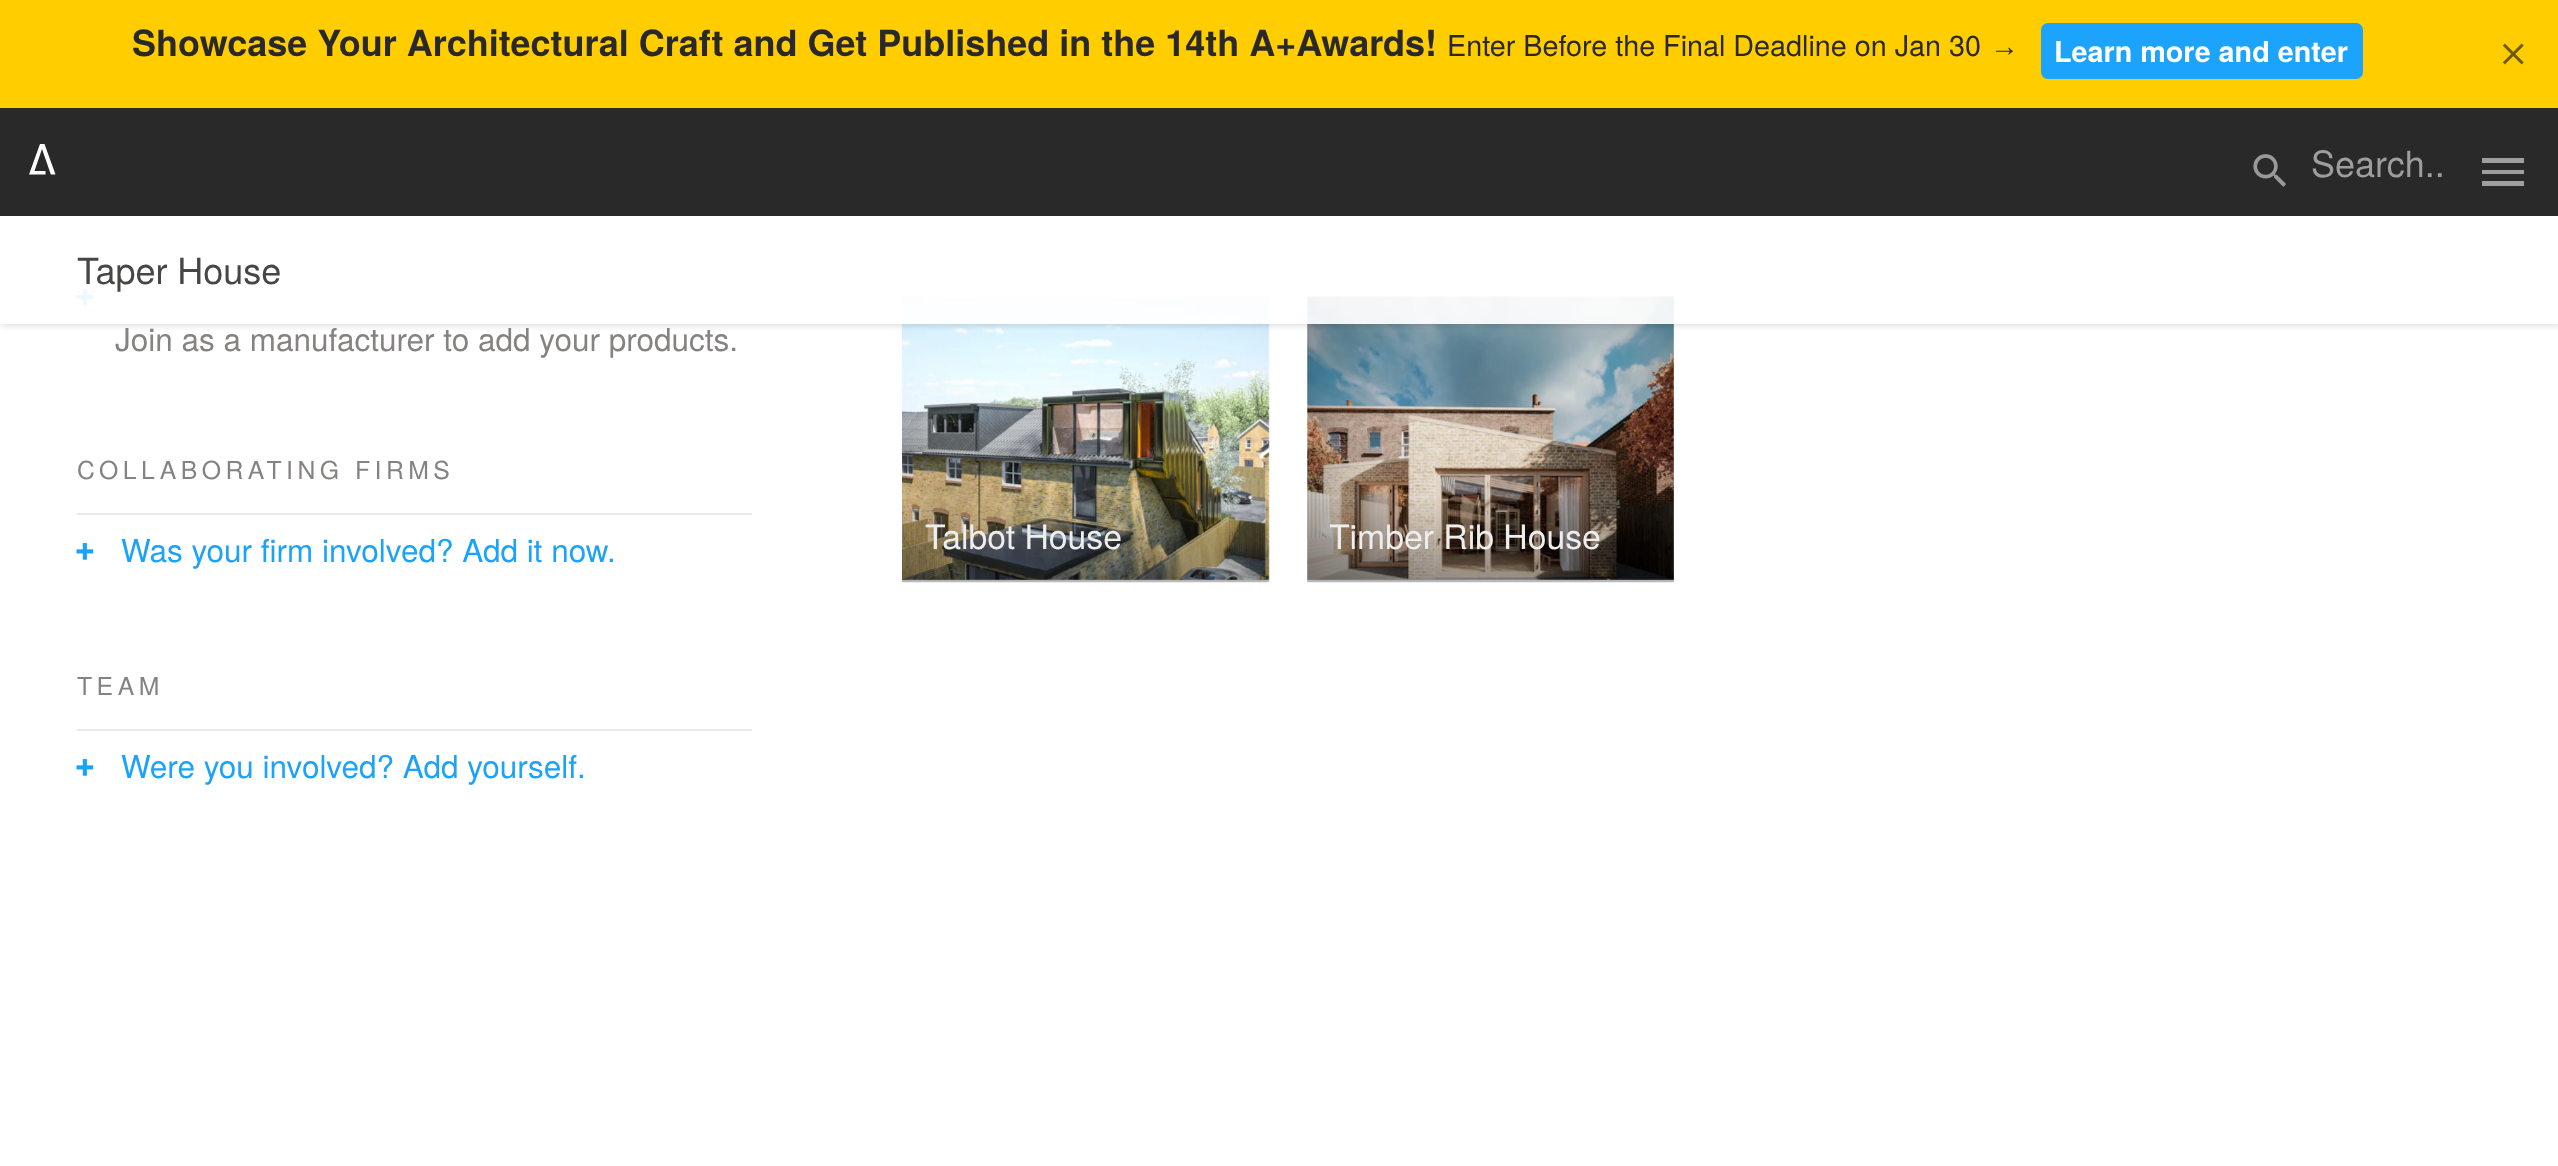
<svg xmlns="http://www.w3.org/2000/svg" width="2558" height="1166">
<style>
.a{font:bold 36px TeX Gyre Heros;fill:#292929}
.b{font:28.75px TeX Gyre Heros;fill:#292929}
.c{font:28.75px Liberation Sans;fill:#292929}
.d{font:bold 28.75px TeX Gyre Heros;fill:#fff}
.e{font:36px TeX Gyre Heros;fill:#9e9e9e}
.f{font:36px TeX Gyre Heros;fill:#474645}
.g{font:31.5px TeX Gyre Heros;fill:#858381}
.h{font:24.75px TeX Gyre Heros;letter-spacing:4.5px;fill:#858381}
.i{font:31.5px TeX Gyre Heros;fill:#1ba2fa}
.j{font:33.75px TeX Gyre Heros;fill:#eee}
</style>
<defs>
<clipPath id="clip1"><path d="M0 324h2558v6H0z"/></clipPath>
<clipPath id="clip2"><path d="M1330 513h292v45H1330z"/></clipPath>
</defs>
<rect width="100%" height="100%" fill="#fff"/>
<path fill="#ffcd00" d="M0 0h2558v108H0z"/>
<rect fill="#1ca3fc" x="2041" y="23" width="322" height="56" rx="7"/>
<image href="1.png" x="2502" y="43" width="22" height="22"/>
<path fill="#ebeae8" d="M77 259h675v2H77z"/>
<image href="3.png" x="76" y="288" width="18" height="18"/>
<image href="5.png" x="902" y="297" width="367" height="284"/>
<image href="6.png" x="902" y="296" width="368" height="284"/>
<image href="5.png" x="1307" y="297" width="367" height="284"/>
<image href="8.png" x="1307" y="296" width="367" height="284"/>
<g clip-path="url(#clip1)">
<path fill="#00000033" filter="blur(4.5px)" d="M2 216h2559v108H2z"/>
</g>
<path fill="#292929" d="M0 108h2558v108H0z"/>
<path fill="#fff" d="M51 175l-9-26l-7.5 22h11v3.5h-16.5l11-30.5h4.5l11 30.5h-4.5z"/>
<image href="2.png" x="2253" y="154" width="33" height="33"/>
<path fill="#9e9e9e" d="M2482 158h42v5h-42zm0 16v-4h42v4zm0 12v-5h42v5z"/>
<path fill="#ffffffeb" d="M76 259h1598v65H76z"/>
<path fill="#ebeae8" d="M77 513h675v2H77z"/>
<image href="4.png" x="76" y="543" width="18" height="17"/>
<path fill="#ebeae8" d="M77 729h675v2H77z"/>
<image href="4.png" x="76" y="759" width="18" height="17"/>
<image href="7.png" x="902" y="499" width="368" height="84"/>
<image href="9.png" x="1307" y="499" width="367" height="84"/>
<text class="a" x="132" y="56">Showcase Your Architectural Craft and Get Published in the 14th A+Awards!</text>
<text class="b" x="1447" y="56">Enter Before the Final Deadline on Jan 30</text>
<text class="c" x="1990" y="56">→</text>
<text class="d" x="2054" y="62">Learn more and enter</text>
<text class="e" x="2311" y="177">Search..</text>
<text class="f" x="77" y="284">Taper House</text>
<text class="g" x="115" y="351">Join as a manufacturer to add your products.</text>
<text class="h" x="77" y="479">COLLABORATING FIRMS</text>
<text class="i" x="121" y="562">Was your firm involved? Add it now.</text>
<text class="h" x="77" y="695">TEAM</text>
<text class="i" x="121" y="778">Were you involved? Add yourself.</text>
<text class="j" x="925" y="549">Talbot House</text>
<g clip-path="url(#clip2)">
<text class="j" x="1329" y="549">Timber Rib House</text>
</g>
</svg>
